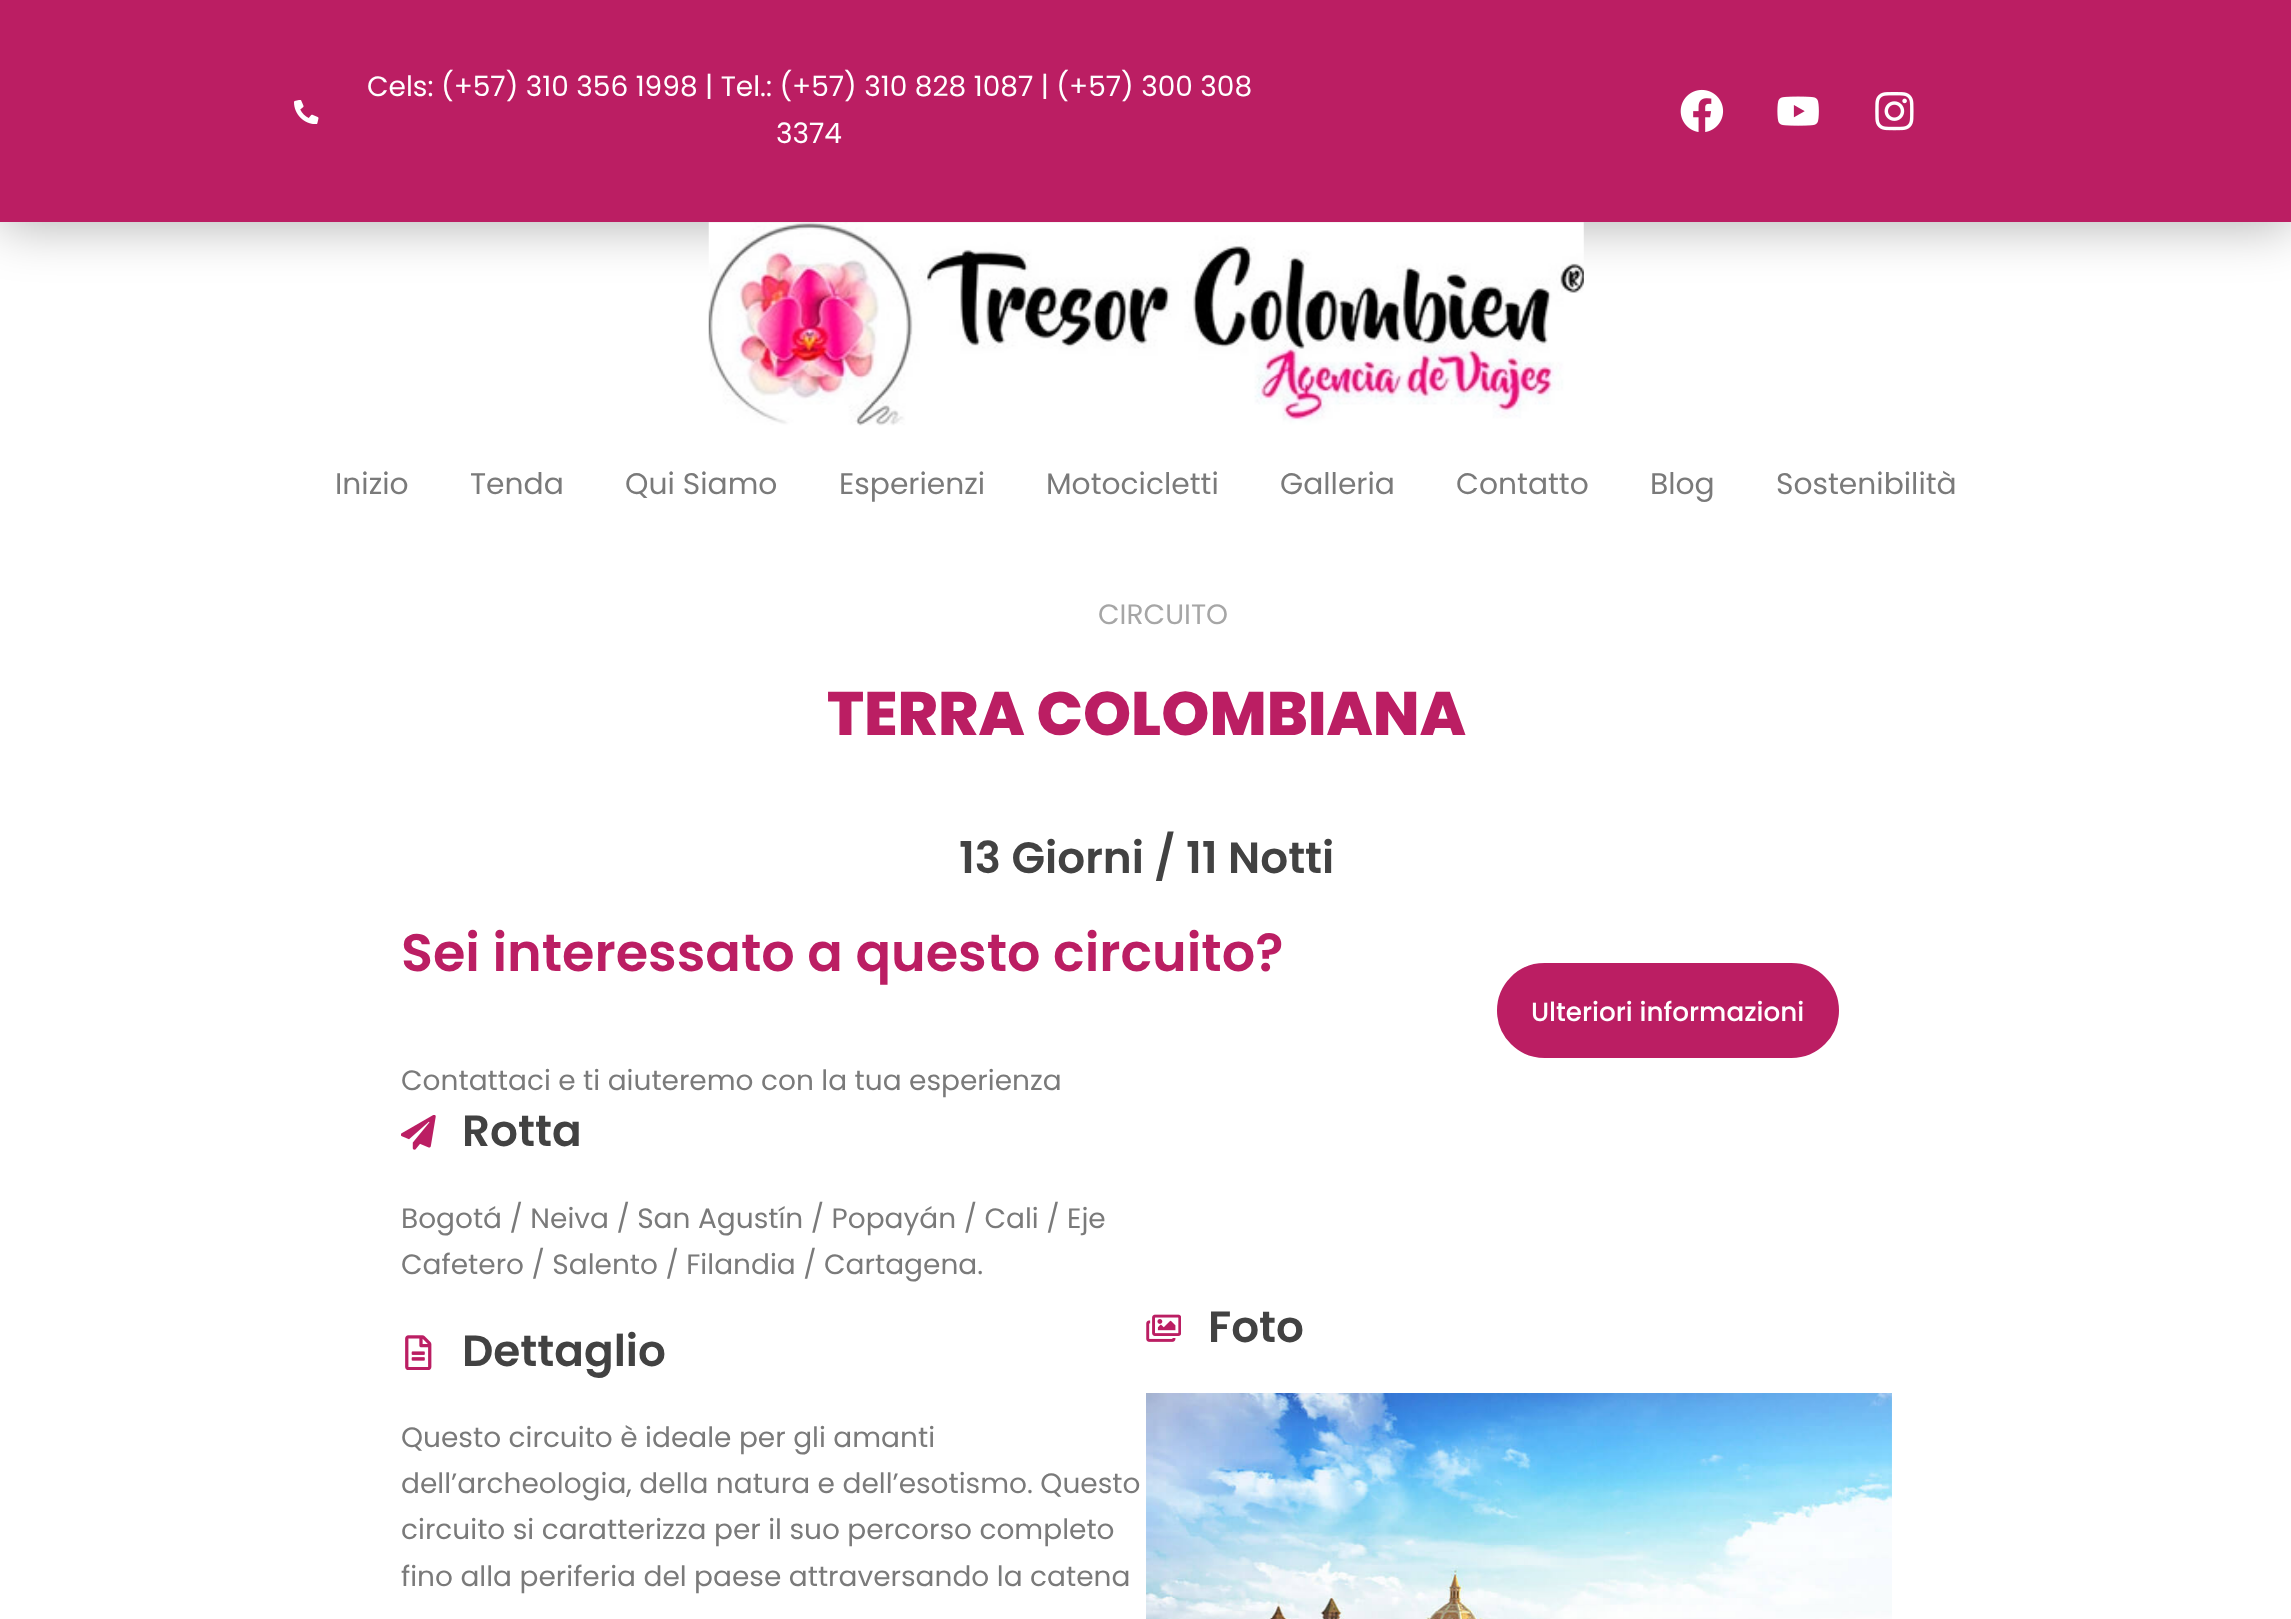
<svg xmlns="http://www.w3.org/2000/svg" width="2291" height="1619">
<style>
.a{font:28px Poppins;fill:#fff}
.b{font:29.75px Poppins;fill:#7a7a7a}
.c{font:28px Poppins;fill:#a6a6a6}
.d{font:800 61.25px Poppins;fill:#bb1e63}
.e{font:600 43.75px Poppins;fill:#424242}
.f{font:600 52.5px Poppins;fill:#bb1e63}
.g{font:28px Poppins;fill:#7a7a7a}
.h{font:500 26.25px Poppins;fill:#fff}
</style>
<rect width="100%" height="100%" fill="#fff"/>
<path fill="#0000004d" filter="blur(26px)" d="M0 4h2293v222H0z"/>
<path fill="#bb1e63" d="M0 0h2291v222H0z"/>
<image href="1.png" x="294" y="100" width="25" height="24"/>
<image href="2.png" x="1680" y="89" width="44" height="43"/>
<image href="3.png" x="1777" y="96" width="42" height="30"/>
<image href="4.png" x="1875" y="92" width="39" height="39"/>
<image href="5.png" x="708" y="222" width="876" height="204"/>
<rect fill="#bb1e63" stroke="#fff" stroke-width="4" x="1495" y="961" width="346" height="99" rx="49.5"/>
<image href="6.png" x="401" y="1115" width="35" height="35"/>
<image href="7.png" x="405" y="1335" width="27" height="35"/>
<image href="8.png" x="1146" y="1314" width="35" height="28"/>
<image href="9.png" x="1146" y="1393" width="746" height="226"/>
<text class="a" x="367" y="96">Cels: (+57) 310 356 1998 | Tel.: (+57) 310 828 1087 | (+57) 300 308</text>
<text class="a" x="776" y="143">3374</text>
<text class="b" x="335" y="494">Inizio</text>
<text class="b" x="470" y="494">Tenda</text>
<text class="b" x="625" y="494">Qui Siamo</text>
<text class="b" x="839" y="494">Esperienzi</text>
<text class="b" x="1046" y="494">Motocicletti</text>
<text class="b" x="1280" y="494">Galleria</text>
<text class="b" x="1456" y="494">Contatto</text>
<text class="b" x="1650" y="494">Blog</text>
<text class="b" x="1776" y="494">Sostenibilità</text>
<text class="c" x="1098" y="624">CIRCUITO</text>
<text class="d" x="827" y="735">TERRA COLOMBIANA</text>
<text class="e" x="959" y="873">13 Giorni / 11 Notti</text>
<text class="f" x="401" y="971">Sei interessato a questo circuito?</text>
<text class="g" x="401" y="1090">Contattaci e ti aiuteremo con la tua esperienza</text>
<text class="h" x="1531" y="1021">Ulteriori informazioni</text>
<text class="e" x="462" y="1146">Rotta</text>
<text class="g" x="401" y="1228">Bogotá / Neiva / San Agustín / Popayán / Cali / Eje</text>
<text class="g" x="401" y="1274">Cafetero / Salento / Filandia / Cartagena.</text>
<text class="e" x="462" y="1366">Dettaglio</text>
<text class="g" x="401" y="1447">Questo circuito è ideale per gli amanti</text>
<text class="g" x="401" y="1493">dell’archeologia, della natura e dell’esotismo. Questo</text>
<text class="g" x="401" y="1539">circuito si caratterizza per il suo percorso completo</text>
<text class="g" x="401" y="1586">fino alla periferia del paese attraversando la catena</text>
<text class="e" x="1208" y="1342">Foto</text>
</svg>
